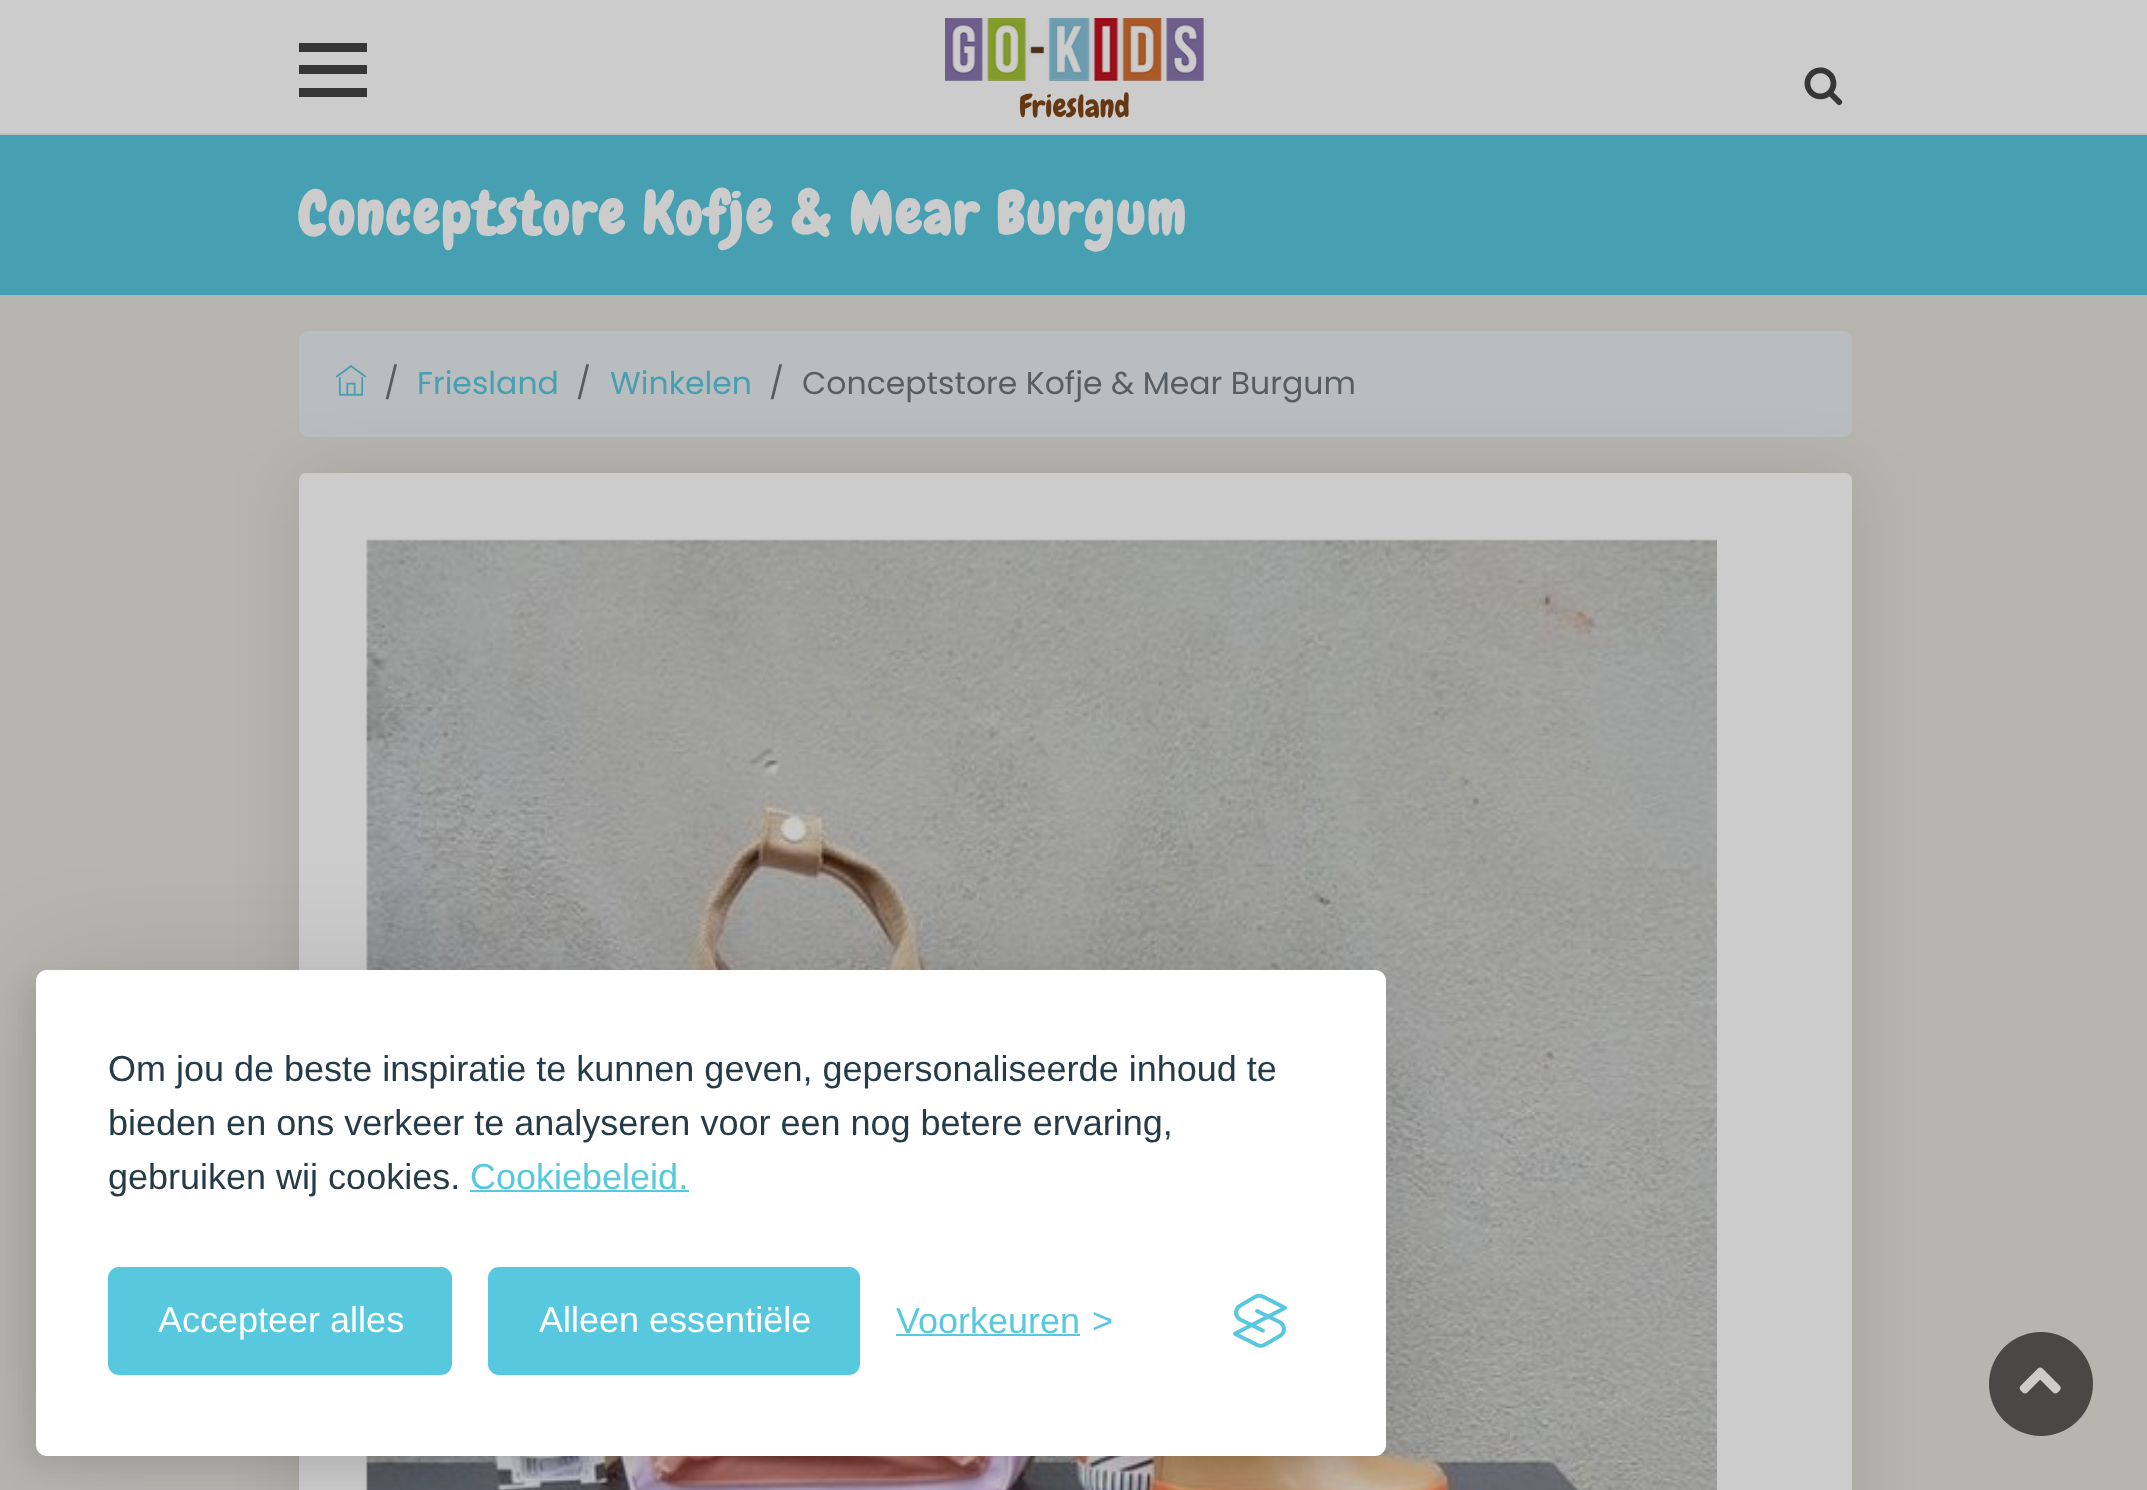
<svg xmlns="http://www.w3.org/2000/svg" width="2147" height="1490">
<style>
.a{font:31.5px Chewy;fill:#663713}
.b{font:bold 58.5px Chewy;letter-spacing:2.25px;fill:#ccc}
.c{font:31.5px Poppins;fill:#565e64}
.d{font:31.5px Poppins;fill:#46a0b1}
.e{font:36px Liberation Sans;fill:#253b48}
.f{font:36px Liberation Sans;fill:#57c8dd}
.g{font:36px Liberation Sans;fill:#fff}
</style>
<rect width="100%" height="100%" fill="#b6b5b0"/>
<path fill="#ccc" d="M0 0h2147v133H0z"/>
<path fill="#bebebe" d="M0 133h2147v2H0z"/>
<path fill="#363636" d="M299 65h68v9H299z"/>
<path fill="#363636" d="M299 43h68v9H299z"/>
<path fill="#363636" d="M299 88h68v9H299z"/>
<image href="1.png" x="1804" y="67" width="39" height="39"/>
<image href="2.png" x="945" y="18" width="259" height="63"/>
<path fill="#46a0b1" d="M0 135h2147v160H0z"/>
<rect fill="#babdbf" x="299" y="331" width="1553" height="106" rx="9"/>
<image href="3.png" x="335" y="365" width="32" height="31"/>
<rect fill="#0000001a" filter="blur(34px)" x="299" y="473" width="1553" height="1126" rx="7"/>
<rect fill="#ccc" x="299" y="473" width="1553" height="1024" rx="7"/>
<image href="4.png" x="366" y="539" width="1351" height="951"/>
<circle fill="#494846" cx="2041" cy="1384" r="52"/>
<image href="5.png" x="2019" y="1367" width="42" height="27"/>
<rect fill="#0000001a" filter="blur(56px)" x="36" y="970" width="1350" height="486" rx="11"/>
<rect fill="#00000012" filter="blur(11px)" x="25" y="981" width="1350" height="486" rx="11"/>
<rect fill="#fff" x="36" y="970" width="1350" height="486" rx="11"/>
<path fill="#57c8dd" d="M470 1190h219v2H470z"/>
<rect fill="#57c8dd" stroke="#57c8dd" stroke-width="5" x="110.5" y="1269.5" width="339" height="103" rx="8.5"/>
<rect fill="#57c8dd" stroke="#57c8dd" stroke-width="5" x="490.5" y="1269.5" width="367" height="103" rx="8.5"/>
<path fill="#57c8dd" d="M896 1334h184v2H896z"/>
<image href="6.png" x="1233" y="1294" width="54" height="54"/>
<text class="a" x="1019" y="117">Friesland</text>
<text class="b" x="298" y="234">Conceptstore Kofje &amp; Mear Burgum</text>
<text class="c" x="384" y="394">/</text>
<text class="d" x="417" y="394">Friesland</text>
<text class="c" x="576" y="394">/</text>
<text class="d" x="610" y="394">Winkelen</text>
<text class="c" x="769" y="394">/</text>
<text class="c" x="802" y="394">Conceptstore Kofje &amp; Mear Burgum</text>
<text class="e" x="108" y="1081">Om jou de beste inspiratie te kunnen geven, gepersonaliseerde inhoud te</text>
<text class="e" x="108" y="1135">bieden en ons verkeer te analyseren voor een nog betere ervaring,</text>
<text class="e" x="108" y="1189">gebruiken wij cookies.</text>
<text class="f" x="470" y="1189">Cookiebeleid.</text>
<text class="g" x="158" y="1332">Accepteer alles</text>
<text class="g" x="539" y="1332">Alleen essentiële</text>
<text class="f" x="896" y="1333">Voorkeuren</text>
<text class="f" x="1092" y="1333">&gt;</text>
</svg>
